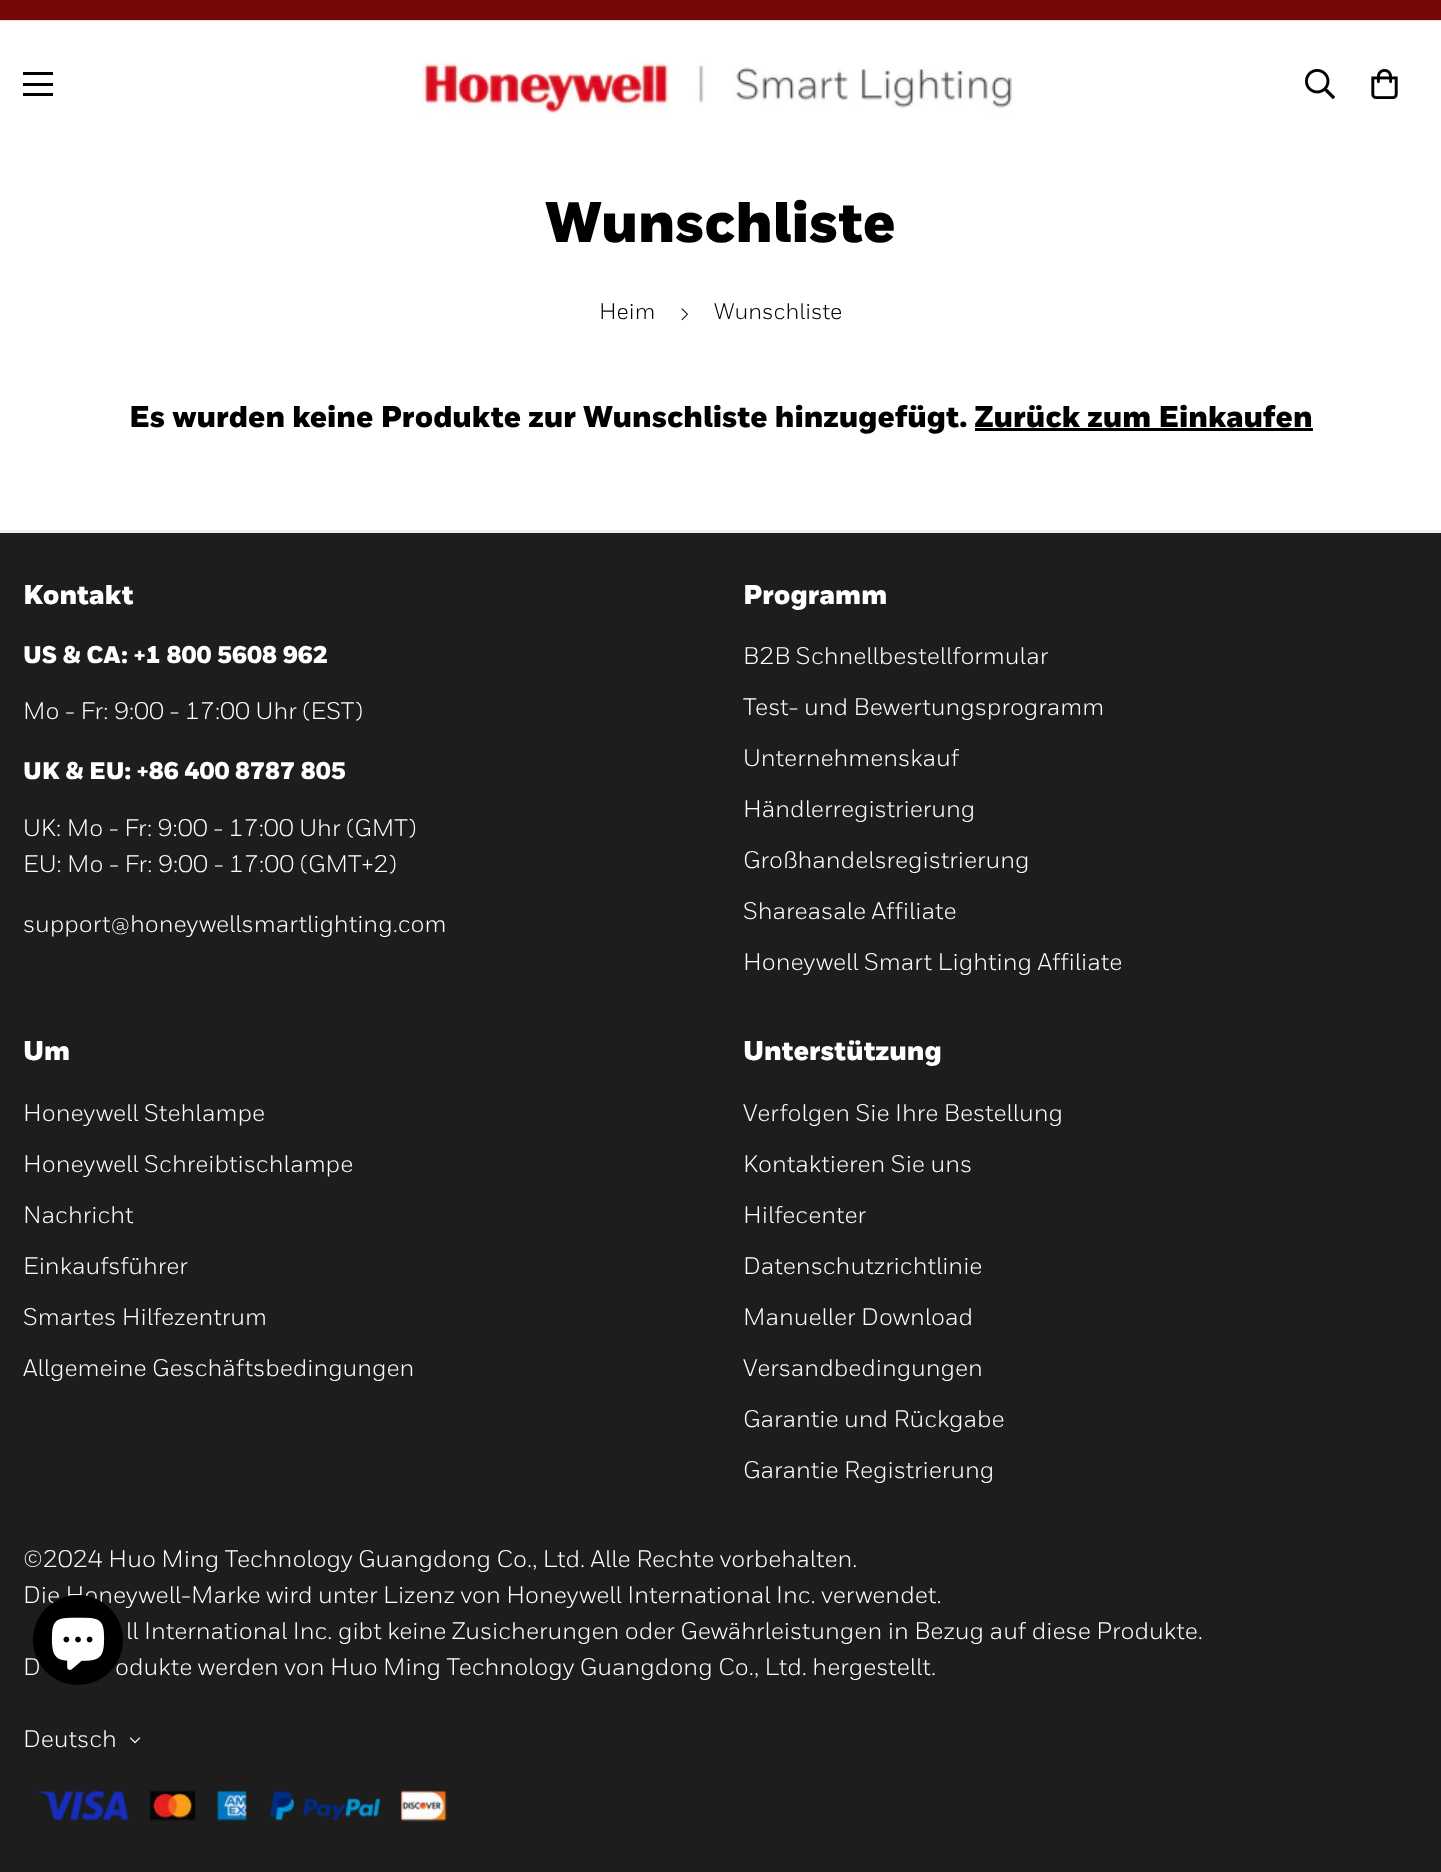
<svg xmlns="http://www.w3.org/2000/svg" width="1441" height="1872">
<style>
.a{font:900 57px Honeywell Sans;fill:#000}
.b{font:22.5px Honeywell Sans;fill:#000}
.c{font:900 30px Honeywell Sans;fill:#000}
.d{font:900 27px Honeywell Sans;fill:#fff}
.e{font:900 24px Honeywell Sans;fill:#fff}
.f{font:24px Honeywell Sans;fill:#fff}
</style>
<rect width="100%" height="100%" fill="#fff"/>
<path fill="#780808" d="M0 0h1441v20H0z"/>
<path fill="#dedede" d="M0 20h1441v1H0z"/>
<path fill="#000" d="M23 83h30v3H23z"/>
<path fill="#000" d="M23 72h30v3H23z"/>
<path fill="#000" d="M23 93h30v3H23z"/>
<image href="1.png" x="422" y="61" width="591" height="53"/>
<image href="2.png" x="1305" y="69" width="30" height="30"/>
<image href="3.png" x="1371" y="69" width="27" height="30"/>
<image href="4.png" x="681" y="308" width="7" height="13"/>
<path fill="#000" d="M975 428h338v3H975z"/>
<path fill="#eee" d="M0 530h1441v3H0z"/>
<path fill="#1d1d1d" d="M0 533h1441v1339H0z"/>
<image href="5.png" x="129" y="1737" width="12" height="7"/>
<image href="6.png" x="38" y="1790" width="409" height="32"/>
<text class="a" x="545" y="242">Wunschliste</text>
<text class="b" x="599" y="319">Heim</text>
<text class="b" x="714" y="319">Wunschliste</text>
<text class="c" x="129" y="427">Es wurden keine Produkte zur Wunschliste hinzugefügt. Zurück zum Einkaufen</text>
<text class="d" x="23" y="604">Kontakt</text>
<text class="e" x="23" y="663">US &amp; CA: +1 800 5608 962</text>
<text class="f" x="23" y="719">Mo - Fr: 9:00 - 17:00 Uhr (EST)</text>
<text class="e" x="23" y="779">UK &amp; EU: +86 400 8787 805</text>
<text class="f" x="23" y="836">UK: Mo - Fr: 9:00 - 17:00 Uhr (GMT)</text>
<text class="f" x="23" y="872">EU: Mo - Fr: 9:00 - 17:00 (GMT+2)</text>
<text class="f" x="23" y="932">support@honeywellsmartlighting.com</text>
<text class="d" x="743" y="604">Programm</text>
<text class="f" x="743" y="664">B2B Schnellbestellformular</text>
<text class="f" x="743" y="715">Test- und Bewertungsprogramm</text>
<text class="f" x="743" y="766">Unternehmenskauf</text>
<text class="f" x="743" y="817">Händlerregistrierung</text>
<text class="f" x="743" y="868">Großhandelsregistrierung</text>
<text class="f" x="743" y="919">Shareasale Affiliate</text>
<text class="f" x="743" y="970">Honeywell Smart Lighting Affiliate</text>
<text class="d" x="23" y="1060">Um</text>
<text class="f" x="23" y="1121">Honeywell Stehlampe</text>
<text class="f" x="23" y="1172">Honeywell Schreibtischlampe</text>
<text class="f" x="23" y="1223">Nachricht</text>
<text class="f" x="23" y="1274">Einkaufsführer</text>
<text class="f" x="23" y="1325">Smartes Hilfezentrum</text>
<text class="f" x="23" y="1376">Allgemeine Geschäftsbedingungen</text>
<text class="d" x="743" y="1060">Unterstützung</text>
<text class="f" x="743" y="1121">Verfolgen Sie Ihre Bestellung</text>
<text class="f" x="743" y="1172">Kontaktieren Sie uns</text>
<text class="f" x="743" y="1223">Hilfecenter</text>
<text class="f" x="743" y="1274">Datenschutzrichtlinie</text>
<text class="f" x="743" y="1325">Manueller Download</text>
<text class="f" x="743" y="1376">Versandbedingungen</text>
<text class="f" x="743" y="1427">Garantie und Rückgabe</text>
<text class="f" x="743" y="1478">Garantie Registrierung</text>
<text class="f" x="23" y="1567">©2024 Huo Ming Technology Guangdong Co., Ltd. Alle Rechte vorbehalten.</text>
<text class="f" x="23" y="1603">Die Honeywell-Marke wird unter Lizenz von Honeywell International Inc. verwendet.</text>
<text class="f" x="126" y="1639">ll International Inc. gibt keine Zusicherungen oder Gewährleistungen in Bezug auf diese Produkte.</text>
<text class="f" x="23" y="1675">D</text>
<text class="f" x="115" y="1675">odukte werden von Huo Ming Technology Guangdong Co., Ltd. hergestellt.</text>
<text class="f" x="23" y="1747">Deutsch</text>
<circle fill="#000" cx="78" cy="1640" r="45"/>
<image href="7.png" x="51" y="1617" width="54" height="53"/>
</svg>
